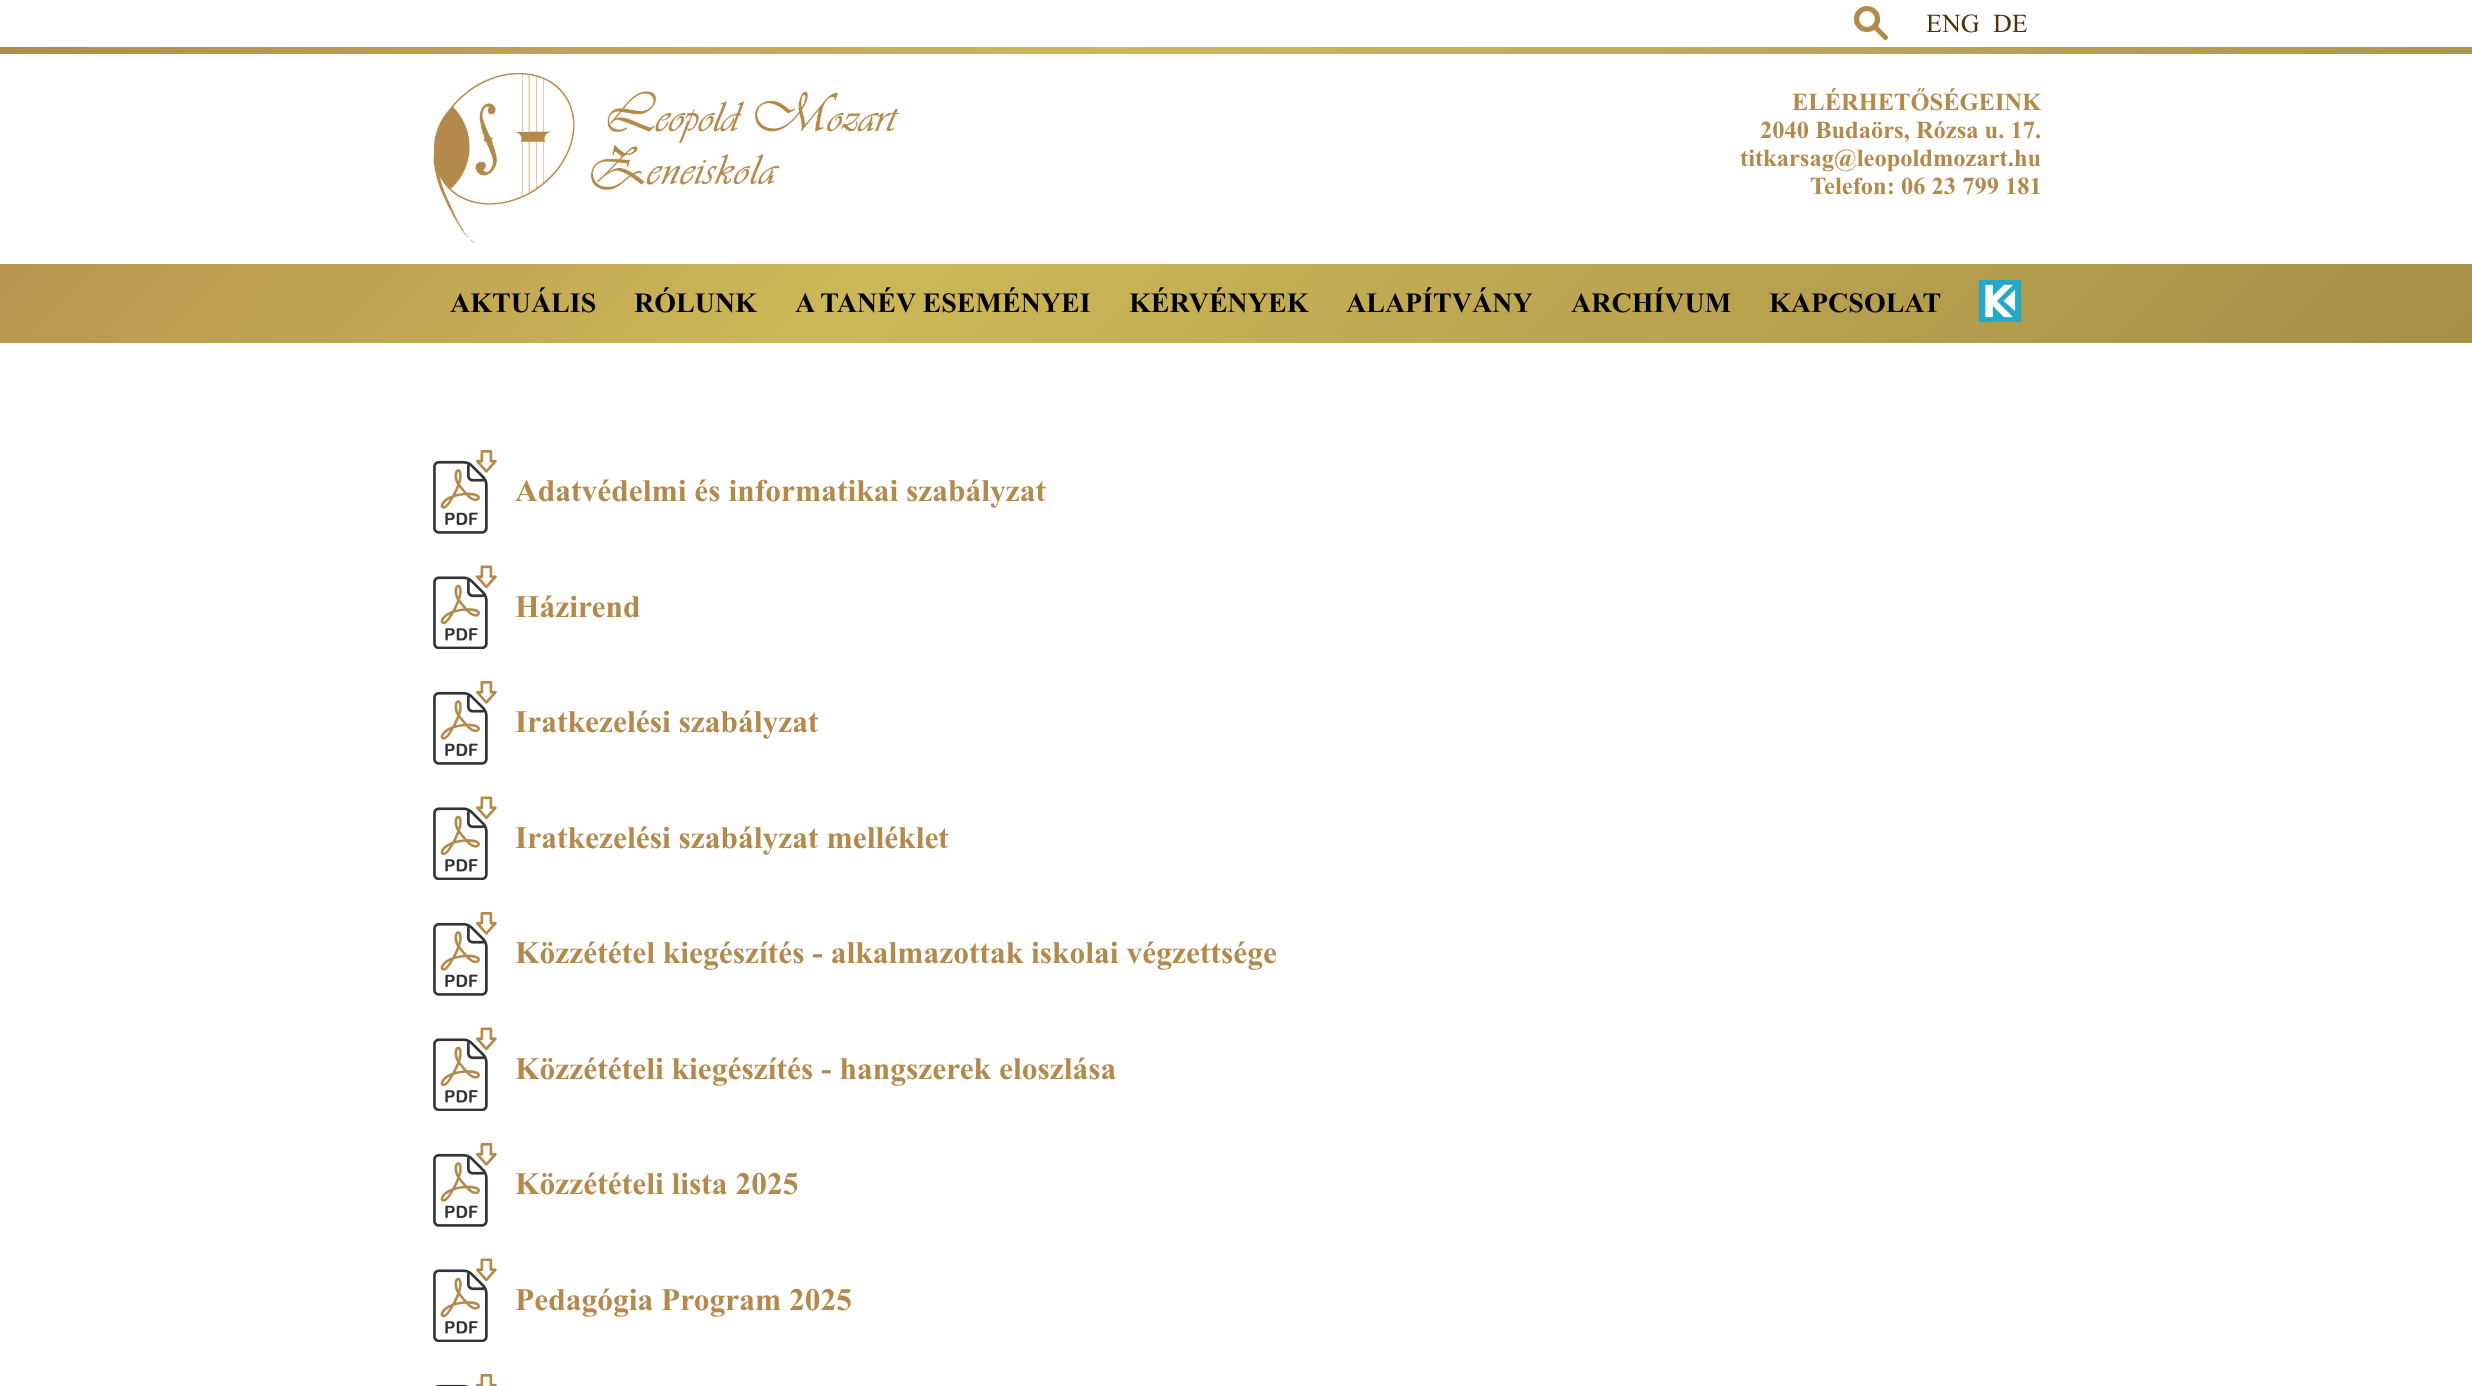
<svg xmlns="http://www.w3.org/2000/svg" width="2472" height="1386">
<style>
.a{font:26px Times New Roman;fill:#50320a}
.b{font:bold 24.5px Times New Roman;fill:#b38a4c}
.c{font:bold 28px Times New Roman;fill:#000}
.d{font:bold 31.5px Times New Roman;fill:#b38a4c}
</style>
<defs>
<linearGradient id="g1" gradientUnits="userSpaceOnUse" x1="272" y1="-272" x2="2201" y2="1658"><stop offset="0" stop-color="#b28a4c"/><stop offset="0.3" stop-color="#ccb858"/><stop offset="0.85" stop-color="#9d8444"/><stop offset="1" stop-color="#745c18"/></linearGradient>
</defs>
<rect width="100%" height="100%" fill="#fff"/>
<circle fill="none" stroke="#b38a4c" stroke-width="5.2" cx="1867" cy="19" r="10.5"/>
<path fill="none" stroke="#b38a4c" stroke-width="5.2" stroke-linecap="round" d="M1875 27l10.5 10.5"/>
<path fill="url(#g1)" d="M0 47h2472v7H0z"/>
<image href="1.png" x="433" y="73" width="467" height="170"/>
<path fill="url(#g1)" d="M0 264h2472v79H0z"/>
<image href="2.png" x="1979" y="280" width="42" height="42"/>
<image href="3.png" x="433" y="450" width="64" height="84"/>
<image href="4.png" x="433" y="565" width="64" height="84"/>
<image href="3.png" x="433" y="681" width="64" height="84"/>
<image href="4.png" x="433" y="796" width="64" height="84"/>
<image href="3.png" x="433" y="912" width="64" height="84"/>
<image href="4.png" x="433" y="1027" width="64" height="84"/>
<image href="3.png" x="433" y="1143" width="64" height="84"/>
<image href="4.png" x="433" y="1258" width="64" height="84"/>
<image href="5.png" x="435" y="1374" width="62" height="12"/>
<text class="a" x="1926" y="32">ENG</text>
<text class="a" x="1993" y="32">DE</text>
<text class="b" x="1792" y="110">ELÉRHETŐSÉGEINK</text>
<text class="b" x="1760" y="138">2040 Budaörs, Rózsa u. 17.</text>
<text class="b" x="1740" y="166">titkarsag@leopoldmozart.hu</text>
<text class="b" x="1810" y="194">Telefon: 06 23 799 181</text>
<text class="c" x="450" y="312">AKTUÁLIS</text>
<text class="c" x="634" y="312">RÓLUNK</text>
<text class="c" x="795" y="312">A TANÉV ESEMÉNYEI</text>
<text class="c" x="1129" y="312">KÉRVÉNYEK</text>
<text class="c" x="1346" y="312">ALAPÍTVÁNY</text>
<text class="c" x="1571" y="312">ARCHÍVUM</text>
<text class="c" x="1769" y="312">KAPCSOLAT</text>
<text class="d" x="515" y="501">Adatvédelmi és informatikai szabályzat</text>
<text class="d" x="515" y="617">Házirend</text>
<text class="d" x="515" y="732">Iratkezelési szabályzat</text>
<text class="d" x="515" y="848">Iratkezelési szabályzat melléklet</text>
<text class="d" x="515" y="963">Közzététel kiegészítés - alkalmazottak iskolai végzettsége</text>
<text class="d" x="515" y="1079">Közzétételi kiegészítés - hangszerek eloszlása</text>
<text class="d" x="515" y="1194">Közzétételi lista 2025</text>
<text class="d" x="515" y="1310">Pedagógia Program 2025</text>
</svg>
